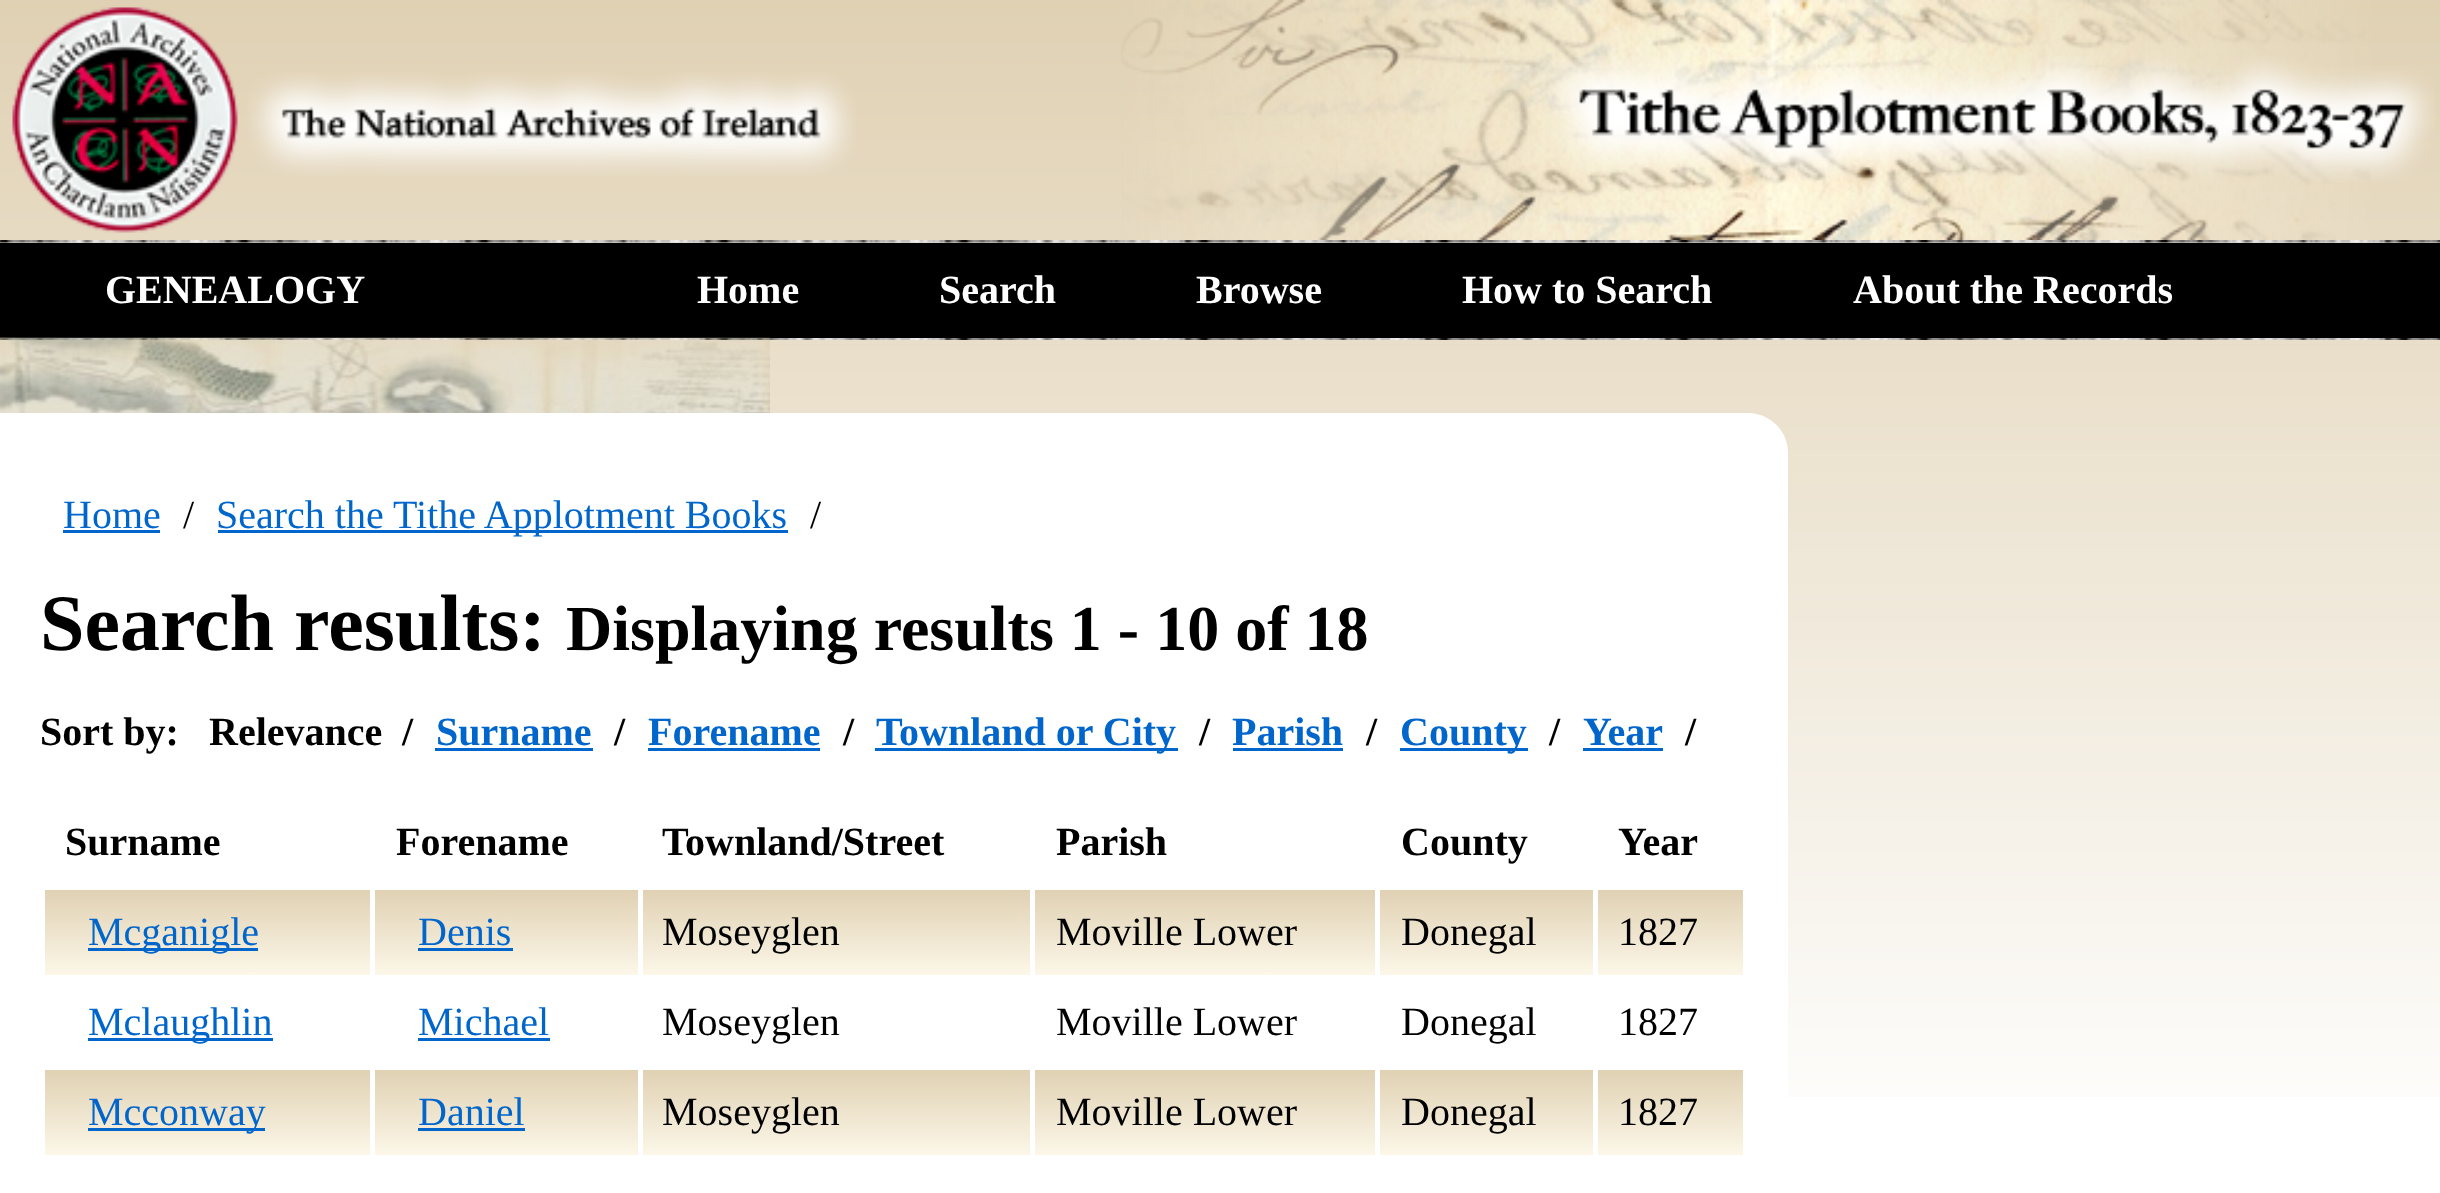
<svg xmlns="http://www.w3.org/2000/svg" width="2440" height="1193">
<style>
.a{font:bold 40px Liberation Serif;fill:#fff}
.b{font:40px Liberation Serif;fill:#06c}
.c{font:40px Liberation Serif;fill:#000}
.d{font:bold 80px Liberation Serif;fill:#000}
.e{font:bold 64px Liberation Serif;fill:#000}
.f{font:bold 40px Liberation Serif;fill:#000}
.g{font:bold 40px Liberation Serif;fill:#06c}
</style>
<defs>
<linearGradient id="g1" gradientUnits="userSpaceOnUse" x1="208" y1="890" x2="208" y2="975"><stop offset="0" stop-color="#e0d1b3"/><stop offset="1" stop-color="#fcf7e8"/></linearGradient>
<linearGradient id="g2" gradientUnits="userSpaceOnUse" x1="506" y1="890" x2="506" y2="975"><stop offset="0" stop-color="#e0d1b3"/><stop offset="1" stop-color="#fcf7e8"/></linearGradient>
<linearGradient id="g3" gradientUnits="userSpaceOnUse" x1="836" y1="890" x2="836" y2="975"><stop offset="0" stop-color="#e0d1b3"/><stop offset="1" stop-color="#fcf7e8"/></linearGradient>
<linearGradient id="g4" gradientUnits="userSpaceOnUse" x1="1205" y1="890" x2="1205" y2="975"><stop offset="0" stop-color="#e0d1b3"/><stop offset="1" stop-color="#fcf7e8"/></linearGradient>
<linearGradient id="g5" gradientUnits="userSpaceOnUse" x1="1486" y1="890" x2="1486" y2="975"><stop offset="0" stop-color="#e0d1b3"/><stop offset="1" stop-color="#fcf7e8"/></linearGradient>
<linearGradient id="g6" gradientUnits="userSpaceOnUse" x1="1670" y1="890" x2="1670" y2="975"><stop offset="0" stop-color="#e0d1b3"/><stop offset="1" stop-color="#fcf7e8"/></linearGradient>
<linearGradient id="g7" gradientUnits="userSpaceOnUse" x1="208" y1="1070" x2="208" y2="1155"><stop offset="0" stop-color="#e0d1b3"/><stop offset="1" stop-color="#fcf7e8"/></linearGradient>
<linearGradient id="g8" gradientUnits="userSpaceOnUse" x1="506" y1="1070" x2="506" y2="1155"><stop offset="0" stop-color="#e0d1b3"/><stop offset="1" stop-color="#fcf7e8"/></linearGradient>
<linearGradient id="g9" gradientUnits="userSpaceOnUse" x1="836" y1="1070" x2="836" y2="1155"><stop offset="0" stop-color="#e0d1b3"/><stop offset="1" stop-color="#fcf7e8"/></linearGradient>
<linearGradient id="g10" gradientUnits="userSpaceOnUse" x1="1205" y1="1070" x2="1205" y2="1155"><stop offset="0" stop-color="#e0d1b3"/><stop offset="1" stop-color="#fcf7e8"/></linearGradient>
<linearGradient id="g11" gradientUnits="userSpaceOnUse" x1="1486" y1="1070" x2="1486" y2="1155"><stop offset="0" stop-color="#e0d1b3"/><stop offset="1" stop-color="#fcf7e8"/></linearGradient>
<linearGradient id="g12" gradientUnits="userSpaceOnUse" x1="1670" y1="1070" x2="1670" y2="1155"><stop offset="0" stop-color="#e0d1b3"/><stop offset="1" stop-color="#fcf7e8"/></linearGradient>
</defs>
<rect width="100%" height="100%" fill="#fff"/>
<image href="1.png" x="0" y="0" width="2440" height="1097"/>
<image href="2.png" x="1121" y="0" width="1250" height="240"/>
<image href="3.png" x="12" y="7" width="226" height="226"/>
<image href="4.png" x="247" y="72" width="609" height="104"/>
<image href="5.png" x="1549" y="56" width="887" height="126"/>
<image href="6.png" x="0" y="240" width="2440" height="100"/>
<path fill="#000" d="M0 243h2440v95H0z"/>
<image href="7.png" x="0" y="337" width="770" height="76"/>
<path fill="#fff" d="M0 413h1748c22 0 40 18 40 40v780h-1788z"/>
<path fill="#06c" d="M63 530h97v3H63z"/>
<path fill="#06c" d="M218 530h570v3H218z"/>
<path fill="#06c" d="M435 748h158v3H435z"/>
<path fill="#06c" d="M648 748h172v3H648z"/>
<path fill="#06c" d="M875 748h303v3H875z"/>
<path fill="#06c" d="M1233 748h110v3H1233z"/>
<path fill="#06c" d="M1400 748h128v3H1400z"/>
<path fill="#06c" d="M1583 748h80v3H1583z"/>
<path fill="url(#g1)" d="M45 890h325v85H45z"/>
<path fill="#06c" d="M88 948h170v3H88z"/>
<path fill="url(#g2)" d="M375 890h263v85H375z"/>
<path fill="#06c" d="M418 948h95v3H418z"/>
<path fill="url(#g3)" d="M643 890h387v85H643z"/>
<path fill="url(#g4)" d="M1035 890h340v85H1035z"/>
<path fill="url(#g5)" d="M1380 890h213v85H1380z"/>
<path fill="url(#g6)" d="M1598 890h145v85H1598z"/>
<path fill="#06c" d="M88 1038h185v3H88z"/>
<path fill="#06c" d="M418 1038h132v3H418z"/>
<path fill="url(#g7)" d="M45 1070h325v85H45z"/>
<path fill="#06c" d="M88 1128h177v3H88z"/>
<path fill="url(#g8)" d="M375 1070h263v85H375z"/>
<path fill="#06c" d="M418 1128h107v3H418z"/>
<path fill="url(#g9)" d="M643 1070h387v85H643z"/>
<path fill="url(#g10)" d="M1035 1070h340v85H1035z"/>
<path fill="url(#g11)" d="M1380 1070h213v85H1380z"/>
<path fill="url(#g12)" d="M1598 1070h145v85H1598z"/>
<text class="a" x="105" y="303">GENEALOGY</text>
<text class="a" x="697" y="303">Home</text>
<text class="a" x="939" y="303">Search</text>
<text class="a" x="1196" y="303">Browse</text>
<text class="a" x="1462" y="303">How to Search</text>
<text class="a" x="1853" y="303">About the Records</text>
<text class="b" x="63" y="528">Home</text>
<text class="c" x="183" y="528">/</text>
<text class="b" x="216" y="528">Search the Tithe Applotment Books</text>
<text class="c" x="810" y="528">/</text>
<text class="d" x="40" y="650">Search results:</text>
<text class="e" x="566" y="650">Displaying results 1 - 10 of 18</text>
<text class="f" x="40" y="745">Sort by:</text>
<text class="f" x="209" y="745">Relevance</text>
<text class="f" x="402" y="745">/</text>
<text class="g" x="436" y="745">Surname</text>
<text class="f" x="614" y="745">/</text>
<text class="g" x="648" y="745">Forename</text>
<text class="f" x="843" y="745">/</text>
<text class="g" x="876" y="745">Townland or City</text>
<text class="f" x="1199" y="745">/</text>
<text class="g" x="1232" y="745">Parish</text>
<text class="f" x="1366" y="745">/</text>
<text class="g" x="1400" y="745">County</text>
<text class="f" x="1549" y="745">/</text>
<text class="g" x="1583" y="745">Year</text>
<text class="f" x="1685" y="745">/</text>
<text class="f" x="65" y="855">Surname</text>
<text class="f" x="396" y="855">Forename</text>
<text class="f" x="662" y="855">Townland/Street</text>
<text class="f" x="1056" y="855">Parish</text>
<text class="f" x="1401" y="855">County</text>
<text class="f" x="1618" y="855">Year</text>
<text class="b" x="88" y="945">Mcganigle</text>
<text class="b" x="418" y="945">Denis</text>
<text class="c" x="662" y="945">Moseyglen</text>
<text class="c" x="1056" y="945">Moville Lower</text>
<text class="c" x="1401" y="945">Donegal</text>
<text class="c" x="1618" y="945">1827</text>
<text class="b" x="88" y="1035">Mclaughlin</text>
<text class="b" x="418" y="1035">Michael</text>
<text class="c" x="662" y="1035">Moseyglen</text>
<text class="c" x="1056" y="1035">Moville Lower</text>
<text class="c" x="1401" y="1035">Donegal</text>
<text class="c" x="1618" y="1035">1827</text>
<text class="b" x="88" y="1125">Mcconway</text>
<text class="b" x="418" y="1125">Daniel</text>
<text class="c" x="662" y="1125">Moseyglen</text>
<text class="c" x="1056" y="1125">Moville Lower</text>
<text class="c" x="1401" y="1125">Donegal</text>
<text class="c" x="1618" y="1125">1827</text>
</svg>
